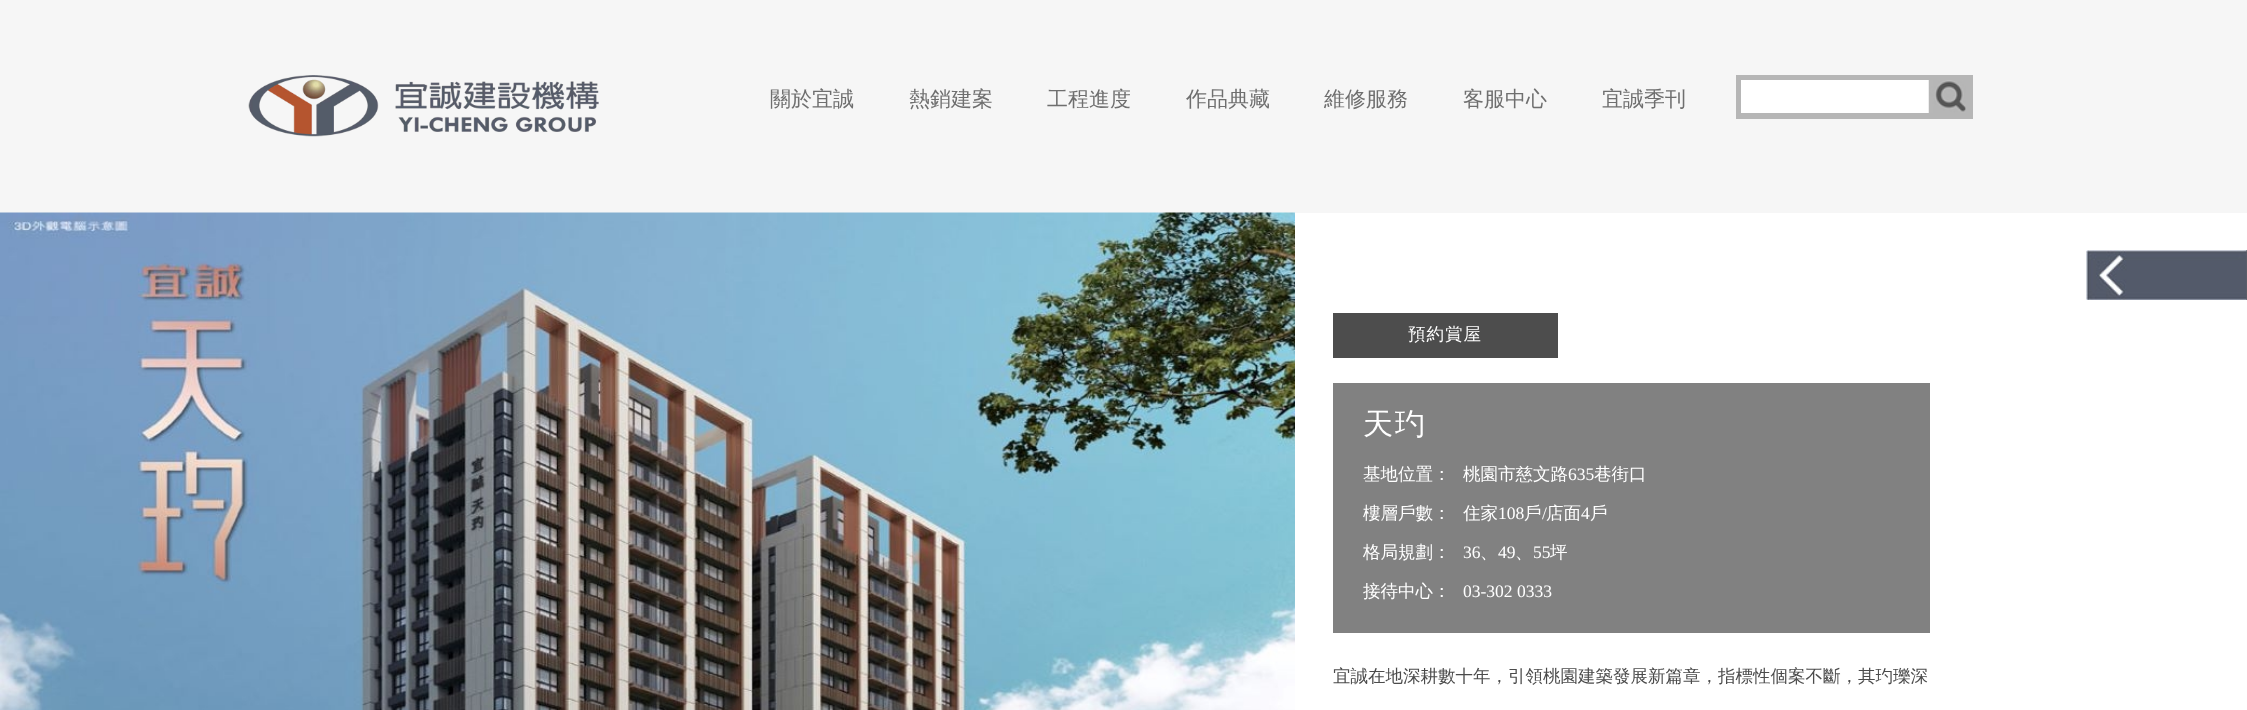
<svg xmlns="http://www.w3.org/2000/svg" width="2247" height="710">
<style>
.a{font:500 21px WenQuanYi Zen Hei;fill:#6f6f6f}
.b{font:500 17.5px WenQuanYi Zen Hei;letter-spacing:1px;fill:#fff}
.c{font:500 30px WenQuanYi Zen Hei;letter-spacing:2px;fill:#fff}
.d{font:500 17.5px WenQuanYi Zen Hei;fill:#fff}
.e{font:17.5px Liberation Serif;fill:#fff}
.f{font:500 17.5px WenQuanYi Zen Hei;fill:#4b4b4b}
</style>
<rect width="100%" height="100%" fill="#f6f6f6"/>
<image href="1.png" x="248" y="75" width="351" height="62"/>
<path fill="#b6b6b6" d="M1736 75h237v44H1736z"/>
<path fill="#fff" d="M1741 80h188v33H1741z"/>
<image href="2.png" x="1928" y="80" width="38" height="33"/>
<path fill="#fff" d="M1295 213h952v497H1295z"/>
<image href="3.png" x="2086" y="250" width="161" height="50"/>
<image href="4.png" x="0" y="212" width="1295" height="498"/>
<path fill="#4d4d4d" d="M1333 313h225v45H1333z"/>
<path fill="#818181" d="M1333 383h597v250H1333z"/>
<text class="a" x="770" y="106">關於宜誠</text>
<text class="a" x="909" y="106">熱銷建案</text>
<text class="a" x="1047" y="106">工程進度</text>
<text class="a" x="1186" y="106">作品典藏</text>
<text class="a" x="1324" y="106">維修服務</text>
<text class="a" x="1463" y="106">客服中心</text>
<text class="a" x="1602" y="106">宜誠季刊</text>
<text class="b" x="1408" y="340">預約賞屋</text>
<text class="c" x="1363" y="434">天玓</text>
<text class="d" x="1363" y="480">基地位置：</text>
<text class="d" x="1463" y="480">桃園市慈文路</text>
<text class="e" x="1568" y="480">635</text>
<text class="d" x="1594" y="480">巷街口</text>
<text class="d" x="1363" y="519">樓層戶數：</text>
<text class="d" x="1463" y="519">住家</text>
<text class="e" x="1498" y="519">108</text>
<text class="d" x="1524" y="519">戶</text>
<text class="e" x="1542" y="519">/</text>
<text class="d" x="1546" y="519">店面</text>
<text class="e" x="1581" y="519">4</text>
<text class="d" x="1590" y="519">戶</text>
<text class="d" x="1363" y="558">格局規劃：</text>
<text class="e" x="1463" y="558">36</text>
<text class="d" x="1480" y="558">、</text>
<text class="e" x="1498" y="558">49</text>
<text class="d" x="1515" y="558">、</text>
<text class="e" x="1533" y="558">55</text>
<text class="d" x="1550" y="558">坪</text>
<text class="d" x="1363" y="597">接待中心：</text>
<text class="e" x="1463" y="597">03-302 0333</text>
<text class="f" x="1333" y="682">宜誠在地深耕數十年，引領桃園建築發展新篇章，指標性個案不斷，其玓瓅深</text>
</svg>
